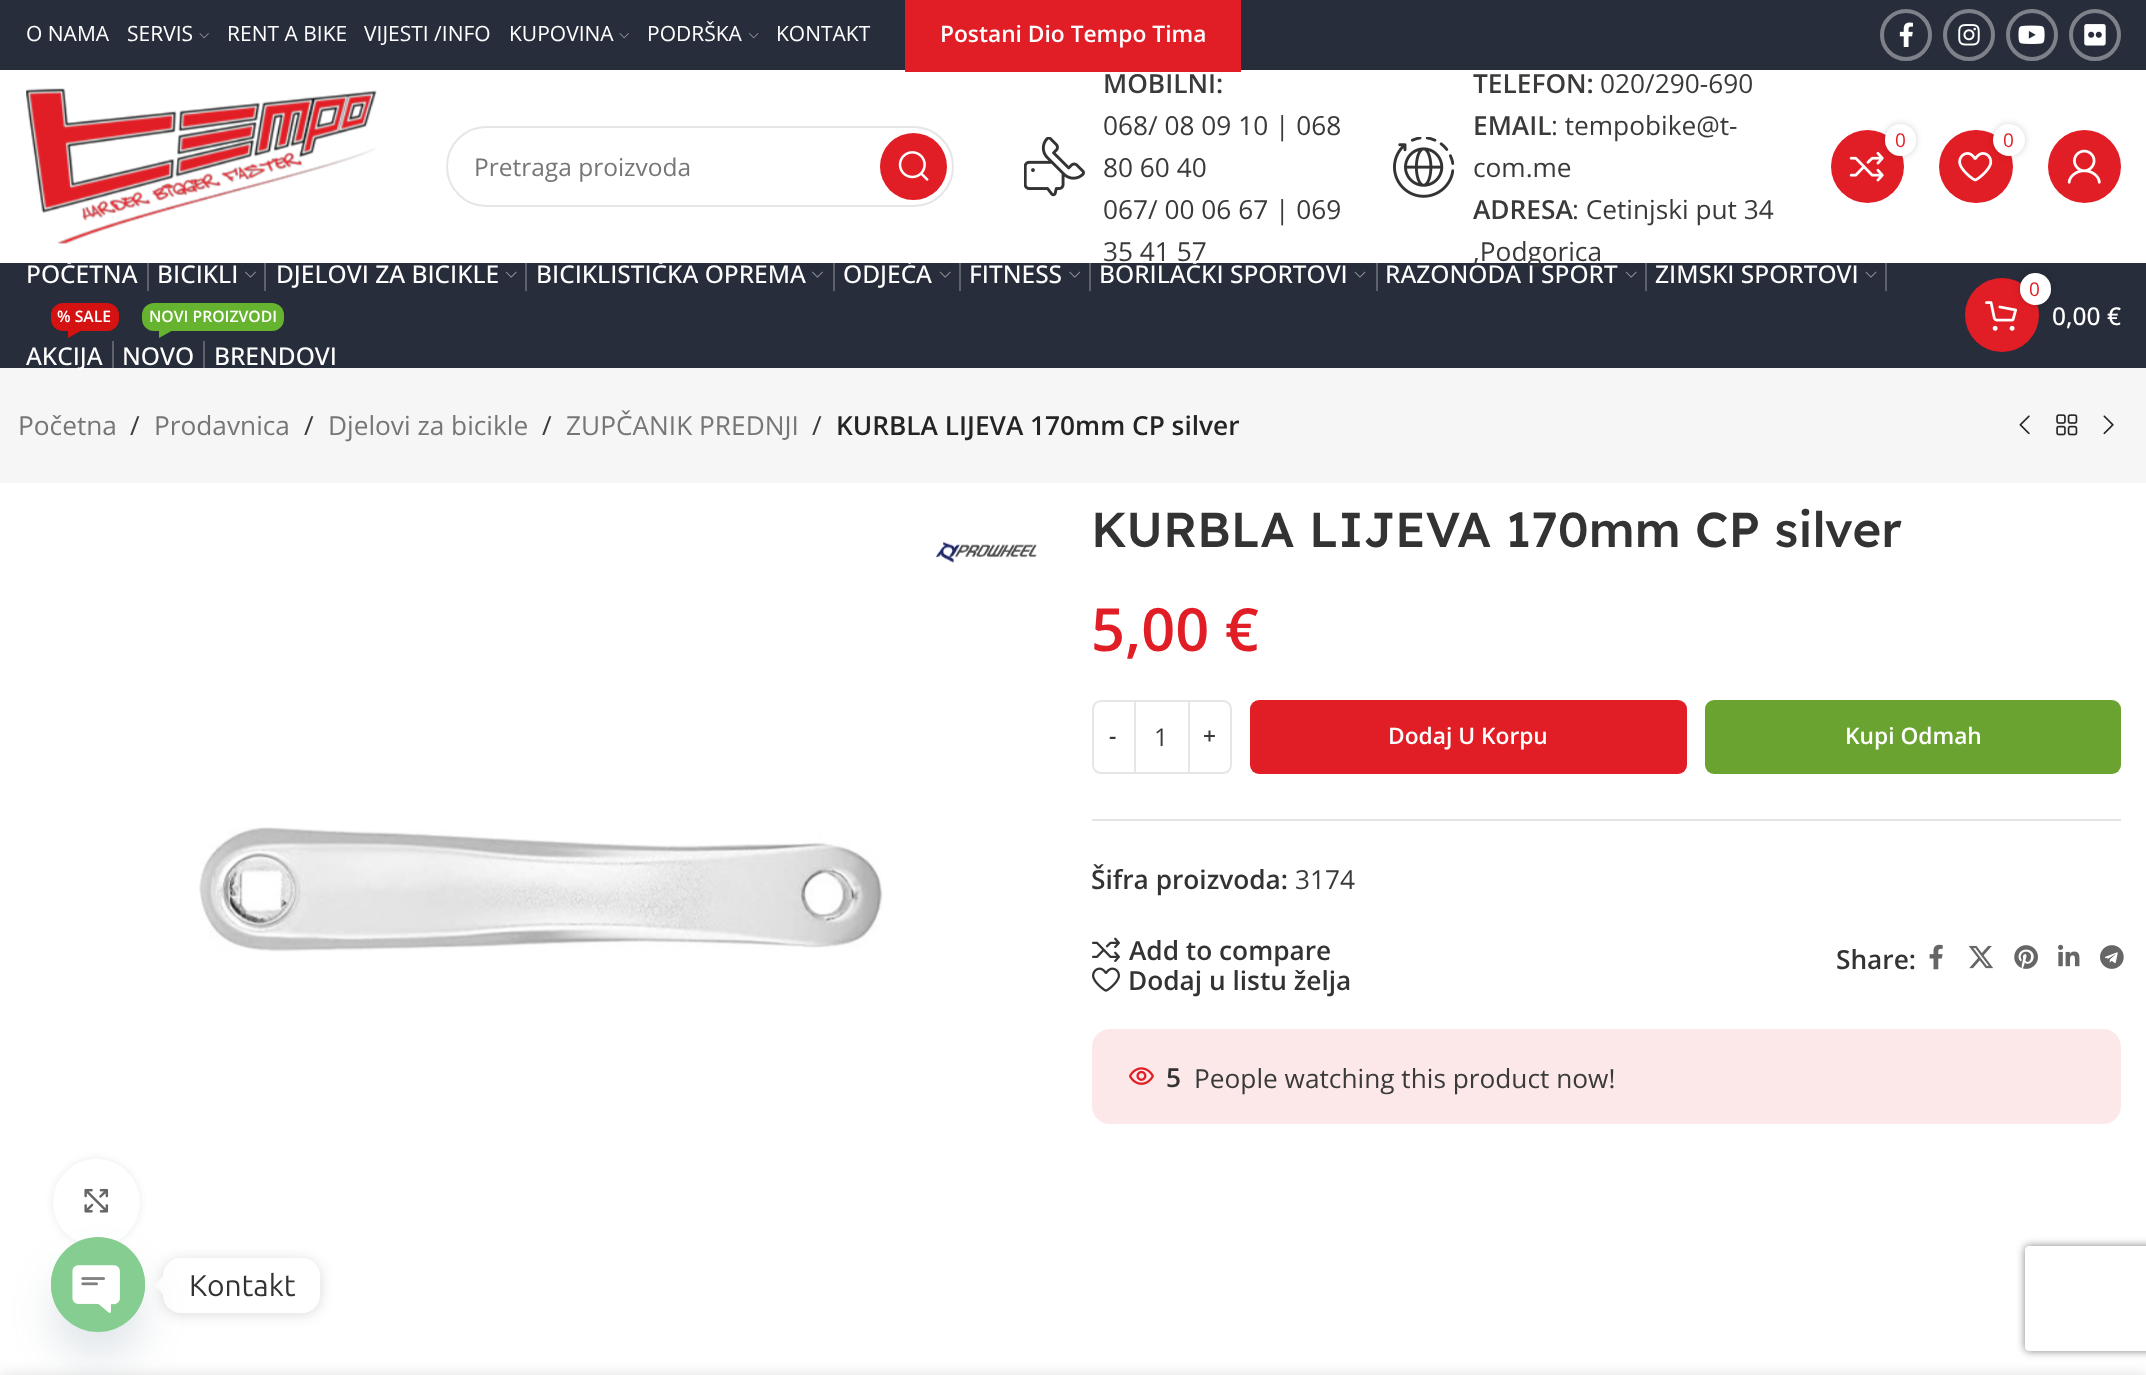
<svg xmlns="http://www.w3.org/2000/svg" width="2146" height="1375">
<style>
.a{font:21px Open Sans;fill:#fff}
.b{font:600 22.75px Open Sans;fill:#fff}
.c{font:24.5px Open Sans;fill:#767676}
.d{font:600 26.25px Open Sans;fill:#3a3a3a}
.e{font:26.25px Open Sans;fill:#3a3a3a}
.f{font:19px Open Sans;fill:#e11e25}
.g{font:500 24.5px Open Sans;fill:#fff}
.h{font:600 15.75px Open Sans;fill:#fff}
.i{font:26.25px Open Sans;fill:#767676}
.j{font:600 26.25px Open Sans;fill:#242424}
.k{font:500 49px Lexend Deca;fill:#333}
.l{font:600 59.5px Open Sans;fill:#e11e25}
.m{font:600 22.75px Open Sans;fill:#3a3a3a}
.n{font:24.5px Open Sans;fill:#3a3a3a}
.o{font:600 26.25px Open Sans;fill:#333}
.p{font:30px Ubuntu;fill:#333}
</style>
<defs>
<clipPath id="clip1"><path d="M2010 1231h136v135h-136zm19 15h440c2 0 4 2 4 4v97c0 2-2 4-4 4h-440c-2 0-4-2-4-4v-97c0-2 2-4 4-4z" clip-rule="evenodd"/></clipPath>
</defs>
<rect width="100%" height="100%" fill="#fff"/>
<path fill="#282d3b" d="M0 0h2146v70H0z"/>
<image href="1.png" x="199" y="33" width="10" height="6"/>
<image href="1.png" x="619" y="33" width="10" height="6"/>
<image href="2.png" x="749" y="33" width="10" height="6"/>
<path fill="#e11e25" d="M905 0h336v72H905z"/>
<circle fill="none" stroke="#7e8189" stroke-width="4" cx="1906" cy="35" r="24"/>
<image href="3.png" x="1899" y="22" width="14" height="25"/>
<circle fill="none" stroke="#7e8189" stroke-width="4" cx="1969" cy="35" r="24"/>
<image href="4.png" x="1958" y="24" width="22" height="22"/>
<circle fill="none" stroke="#7e8189" stroke-width="4" cx="2032" cy="35" r="24"/>
<image href="5.png" x="2018" y="25" width="27" height="19"/>
<circle fill="none" stroke="#7e8189" stroke-width="4" cx="2095" cy="35" r="24"/>
<image href="6.png" x="2084" y="24" width="22" height="22"/>
<image href="7.png" x="26" y="88" width="351" height="156"/>
<rect fill="none" stroke="#e6e6e6" stroke-width="2" x="447" y="127" width="506" height="79" rx="39.5"/>
<circle fill="#e11e25" cx="913.5" cy="166.5" r="33.5"/>
<image href="8.png" x="898" y="151" width="31" height="30"/>
<image href="9.png" x="1024" y="137" width="61" height="60"/>
<image href="10.png" x="1393" y="137" width="61" height="61"/>
<circle fill="#e11e25" cx="1867.5" cy="166.5" r="36.5"/>
<image href="11.png" x="1849" y="151" width="35" height="31"/>
<rect fill="#0000002b" filter="blur(3.5px)" x="1885" y="124" width="31" height="32" rx="15.5"/>
<rect fill="#fff" x="1885" y="124" width="31" height="32" rx="15.5"/>
<rect fill="#e11e25" x="1939" y="130" width="74" height="73" rx="36.5"/>
<image href="12.png" x="1958" y="152" width="35" height="30"/>
<rect fill="#0000002b" filter="blur(3.5px)" x="1993" y="124" width="32" height="32" rx="16"/>
<circle fill="#fff" cx="2009" cy="140" r="16"/>
<circle fill="#e11e25" cx="2084.5" cy="166.5" r="36.5"/>
<image href="13.png" x="2067" y="149" width="34" height="35"/>
<path fill="#282d3b" d="M0 263h2146v105H0z"/>
<path fill="#5e626c" d="M203 341h2v27H203z"/>
<path fill="#5e626c" d="M112 341h2v27H112z"/>
<path fill="#5e626c" d="M1885 263h2v28H1885z"/>
<path fill="#5e626c" d="M1645 263h2v28H1645z"/>
<path fill="#5e626c" d="M1376 263h2v28H1376z"/>
<path fill="#5e626c" d="M1089 263h2v28H1089z"/>
<path fill="#5e626c" d="M959 263h2v28H959z"/>
<path fill="#5e626c" d="M833 263h2v28H833z"/>
<path fill="#5e626c" d="M525 263h2v28H525z"/>
<path fill="#5e626c" d="M264 263h2v28H264z"/>
<path fill="#5e626c" d="M147 263h2v28H147z"/>
<image href="14.png" x="245" y="271" width="11" height="7"/>
<image href="15.png" x="505" y="271" width="12" height="7"/>
<image href="14.png" x="812" y="271" width="11" height="7"/>
<image href="15.png" x="939" y="271" width="12" height="7"/>
<image href="16.png" x="1069" y="271" width="12" height="7"/>
<image href="17.png" x="1354" y="271" width="12" height="7"/>
<image href="15.png" x="1625" y="271" width="12" height="7"/>
<image href="17.png" x="1865" y="271" width="12" height="7"/>
<rect fill="#d41212" x="51" y="303" width="68" height="28" rx="12"/>
<path fill="#d41212" d="M68 331h12.5l-12.5 7z"/>
<rect fill="#65b32e" x="142" y="303" width="142" height="28" rx="12"/>
<path fill="#65b32e" d="M159 331h12.5l-12.5 7z"/>
<circle fill="#e11e25" cx="2002" cy="315" r="37"/>
<image href="18.png" x="1985" y="301" width="32" height="30"/>
<rect fill="#0000002b" filter="blur(3.5px)" x="2020" y="273" width="31" height="32" rx="15.5"/>
<rect fill="#fff" x="2020" y="273" width="31" height="32" rx="15.5"/>
<path fill="#f6f6f6" d="M0 368h2146v115H0z"/>
<image href="19.png" x="2019" y="415" width="11" height="20"/>
<image href="20.png" x="2056" y="414" width="22" height="22"/>
<image href="21.png" x="2103" y="415" width="11" height="20"/>
<image href="22.png" x="935" y="541" width="102" height="22"/>
<image href="23.png" x="199" y="827" width="684" height="125"/>
<rect fill="#00000014" filter="blur(4.5px)" x="53" y="1159" width="87" height="87" rx="43.5"/>
<circle fill="#fff" cx="96.5" cy="1202.5" r="43.5"/>
<image href="24.png" x="84" y="1188" width="25" height="25"/>
<path fill="none" stroke="#e6e6e6" stroke-width="2" d="M1101 701h34v72h-34c-4.5 0-8-3.5-8-8v-56c0-4.5 3.5-8 8-8z"/>
<path fill="#e6e6e6" d="M1136 700h52v2H1136z"/>
<path fill="#e6e6e6" d="M1136 772h52v2H1136z"/>
<path fill="none" stroke="#e6e6e6" stroke-width="2" d="M1189 701h34c4.5 0 8 3.5 8 8v56c0 4.5-3.5 8-8 8h-34z"/>
<rect fill="#e11e25" x="1250" y="700" width="437" height="74" rx="9"/>
<rect fill="#6ba331" x="1705" y="700" width="416" height="74" rx="9"/>
<path fill="#e3e3e3" d="M1092 819h1029v2H1092z"/>
<image href="25.png" x="1092" y="937" width="28" height="25"/>
<image href="26.png" x="1092" y="967" width="28" height="25"/>
<image href="27.png" x="1929" y="944" width="14" height="26"/>
<image href="28.png" x="1969" y="945" width="24" height="24"/>
<image href="29.png" x="2014" y="945" width="24" height="24"/>
<image href="30.png" x="2058" y="944" width="22" height="23"/>
<image href="31.png" x="2100" y="945" width="24" height="24"/>
<image href="32.png" x="1129" y="1067" width="25" height="18"/>
<rect fill="#e11e251a" x="1092" y="1029" width="1029" height="95" rx="18"/>
<rect fill="#00000026" filter="blur(7px)" x="163" y="1260" width="157" height="54" rx="18"/>
<rect fill="#fff" x="163" y="1258" width="157" height="55" rx="18"/>
<path fill="#fff" d="M163 1276.5v17.5l-9-8.5z"/>
<rect fill="#49687e29" filter="blur(21px)" x="51" y="1265" width="94" height="95" rx="47"/>
<rect fill="#86cd91" x="51" y="1237" width="94" height="95" rx="47"/>
<image href="33.png" x="51" y="1254" width="94" height="61"/>
<g clip-path="url(#clip1)">
<rect fill="#808080" filter="blur(4.5px)" x="2025" y="1246" width="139" height="105" rx="4"/>
</g>
<path fill="#00000024" filter="blur(8px)" d="M0 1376h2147v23H0z"/>
<text class="a" x="26" y="41">O NAMA</text>
<text class="a" x="127" y="41">SERVIS</text>
<text class="a" x="227" y="41">RENT A BIKE</text>
<text class="a" x="364" y="41">VIJESTI /INFO</text>
<text class="a" x="509" y="41">KUPOVINA</text>
<text class="a" x="647" y="41">PODRŠKA</text>
<text class="a" x="776" y="41">KONTAKT</text>
<text class="b" x="940" y="42">Postani Dio Tempo Tima</text>
<text class="c" x="474" y="176">Pretraga proizvoda</text>
<text class="d" x="1103" y="93">MOBILNI:</text>
<text class="e" x="1103" y="135">068/ 08 09 10 | 068</text>
<text class="e" x="1103" y="177">80 60 40</text>
<text class="e" x="1103" y="219">067/ 00 06 67 | 069</text>
<text class="e" x="1103" y="261">35 41 57</text>
<text class="d" x="1473" y="93">TELEFON:</text>
<text class="e" x="1600" y="93">020/290-690</text>
<text class="d" x="1473" y="135">EMAIL</text>
<text class="e" x="1551" y="135">: tempobike@t-</text>
<text class="e" x="1473" y="177">com.me</text>
<text class="d" x="1473" y="219">ADRESA</text>
<text class="e" x="1572" y="219">: Cetinjski put 34</text>
<text class="e" x="1473" y="261">,Podgorica</text>
<text class="f" x="1895" y="147">0</text>
<text class="f" x="2003" y="147">0</text>
<text class="g" x="26" y="283">POČETNA</text>
<text class="g" x="157" y="283">BICIKLI</text>
<text class="g" x="276" y="283">DJELOVI ZA BICIKLE</text>
<text class="g" x="536" y="283">BICIKLISTIČKA OPREMA</text>
<text class="g" x="843" y="283">ODJEĆA</text>
<text class="g" x="969" y="283">FITNESS</text>
<text class="g" x="1099" y="283">BORILAČKI SPORTOVI</text>
<text class="g" x="1385" y="283">RAZONODA I SPORT</text>
<text class="g" x="1655" y="283">ZIMSKI SPORTOVI</text>
<text class="h" x="57" y="322">% SALE</text>
<text class="g" x="26" y="365">AKCIJA</text>
<text class="h" x="149" y="322">NOVI PROIZVODI</text>
<text class="g" x="122" y="365">NOVO</text>
<text class="g" x="214" y="365">BRENDOVI</text>
<text class="f" x="2029" y="296">0</text>
<text class="g" x="2052" y="325">0,00 €</text>
<text class="i" x="18" y="435">Početna</text>
<text class="e" x="130" y="435">/</text>
<text class="i" x="154" y="435">Prodavnica</text>
<text class="e" x="304" y="435">/</text>
<text class="i" x="328" y="435">Djelovi za bicikle</text>
<text class="e" x="542" y="435">/</text>
<text class="i" x="566" y="435">ZUPČANIK PREDNJI</text>
<text class="e" x="812" y="435">/</text>
<text class="j" x="836" y="435">KURBLA LIJEVA 170mm CP silver</text>
<text class="k" x="1091" y="547">KURBLA LIJEVA 170mm CP silver</text>
<text class="l" x="1091" y="651">5,00 €</text>
<text class="m" x="1109" y="744">-</text>
<text class="n" x="1154" y="746">1</text>
<text class="m" x="1203" y="744">+</text>
<text class="b" x="1388" y="744">Dodaj U Korpu</text>
<text class="b" x="1845" y="744">Kupi Odmah</text>
<text class="o" x="1091" y="889">Šifra proizvoda:</text>
<text class="e" x="1295" y="889">3174</text>
<text class="o" x="1129" y="960">Add to compare</text>
<text class="o" x="1128" y="990">Dodaj u listu želja</text>
<text class="o" x="1836" y="969">Share:</text>
<text class="o" x="1166" y="1087">5</text>
<text class="e" x="1194" y="1088">People watching this product now!</text>
<text class="p" x="189" y="1296">Kontakt</text>
</svg>
